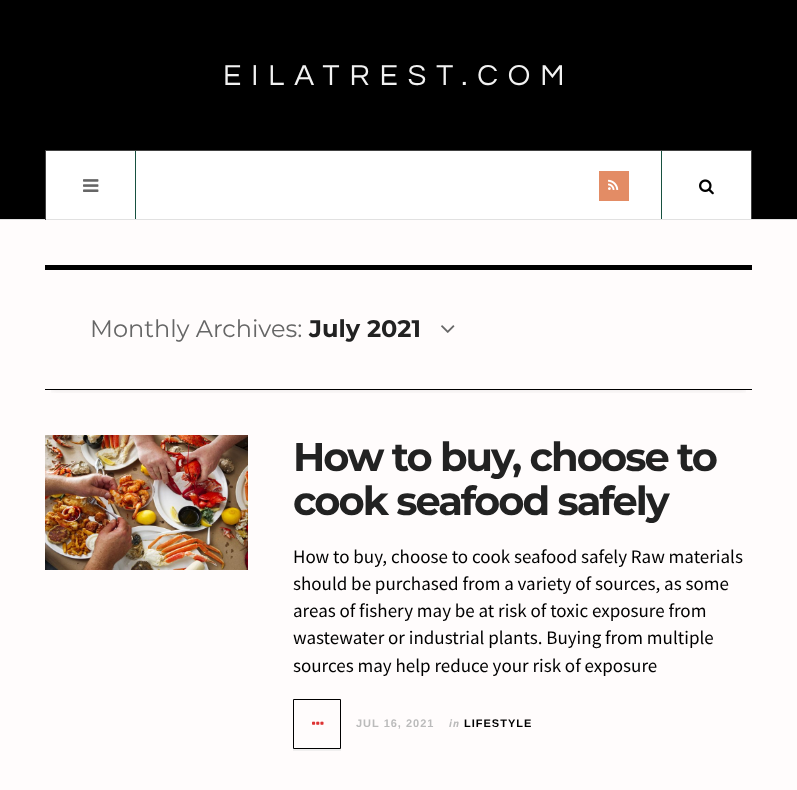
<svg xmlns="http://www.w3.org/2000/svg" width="797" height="790">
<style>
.a{font:30px Questrial;letter-spacing:10px;fill:#f2f2f2}
.b{font:24px Montserrat;fill:#666}
.c{font:bold 24px Montserrat;fill:#222}
.d{font:bold 40px Montserrat;letter-spacing:-2px;fill:#222}
.e{font:19px Source Sans Pro;fill:#000}
.f{font:bold 11px Arimo;letter-spacing:1px;fill:#bbb}
.g{font:italic bold 11px Source Sans Pro;letter-spacing:1px;fill:#bbb}
.h{font:bold 11px Arimo;letter-spacing:1px;fill:#000}
</style>
<defs>
<clipPath id="clip1"><path d="M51 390h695v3H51z"/></clipPath>
</defs>
<rect width="100%" height="100%" fill="#fffcfc"/>
<path fill="#000" d="M0 0h797v219H0z"/>
<path fill="#e1e1e1" d="M0 219h797v1H0z"/>
<path fill="#fff" d="M46 151h705v68H46z"/>
<path fill="#424242" d="M45 150h707v1H45z"/>
<path fill="#424242" d="M751 150h1v70H751z"/>
<path fill="#e1e1e1" d="M751 219h1v1H751z"/>
<path fill="#424242" d="M45 150h1v70H45z"/>
<path fill="#175140" d="M135 151h1v68H135z"/>
<image href="1.png" x="83" y="179" width="16" height="13"/>
<path fill="#e38c65" d="M599 171h30v30H599z"/>
<image href="2.png" x="608" y="179" width="11" height="11"/>
<path fill="#175140" d="M661 151h1v68H661z"/>
<image href="3.png" x="699" y="179" width="15" height="16"/>
<path fill="#000" d="M45 265h707v5H45z"/>
<g clip-path="url(#clip1)">
<path fill="#0000001a" filter="blur(3px)" d="M51 282h695v108H51z"/>
</g>
<path fill="#000" d="M45 389h707v1H45z"/>
<image href="4.png" x="441" y="325" width="14" height="8"/>
<image href="5.png" x="45" y="435" width="203" height="135"/>
<path fill="#f0efef" d="M293 749h48v2H293z"/>
<path fill="none" stroke="#000" d="M293.5 699.5h47v49H293.5z"/>
<image href="6.png" x="312" y="721" width="12" height="4"/>
<text class="a" x="223" y="85">EILATREST.COM</text>
<text class="b" x="90" y="337">Monthly Archives:</text>
<text class="c" x="309" y="337">July 2021</text>
<text class="d" x="293" y="471">How to buy, choose to</text>
<text class="d" x="293" y="515">cook seafood safely</text>
<text class="e" x="293" y="563">How to buy, choose to cook seafood safely Raw materials</text>
<text class="e" x="293" y="590">should be purchased from a variety of sources, as some</text>
<text class="e" x="293" y="617">areas of fishery may be at risk of toxic exposure from</text>
<text class="e" x="293" y="644">wastewater or industrial plants. Buying from multiple</text>
<text class="e" x="293" y="672">sources may help reduce your risk of exposure</text>
<text class="f" x="356" y="727">JUL 16, 2021</text>
<text class="g" x="449" y="727">in</text>
<text class="h" x="464" y="727">LIFESTYLE</text>
</svg>
